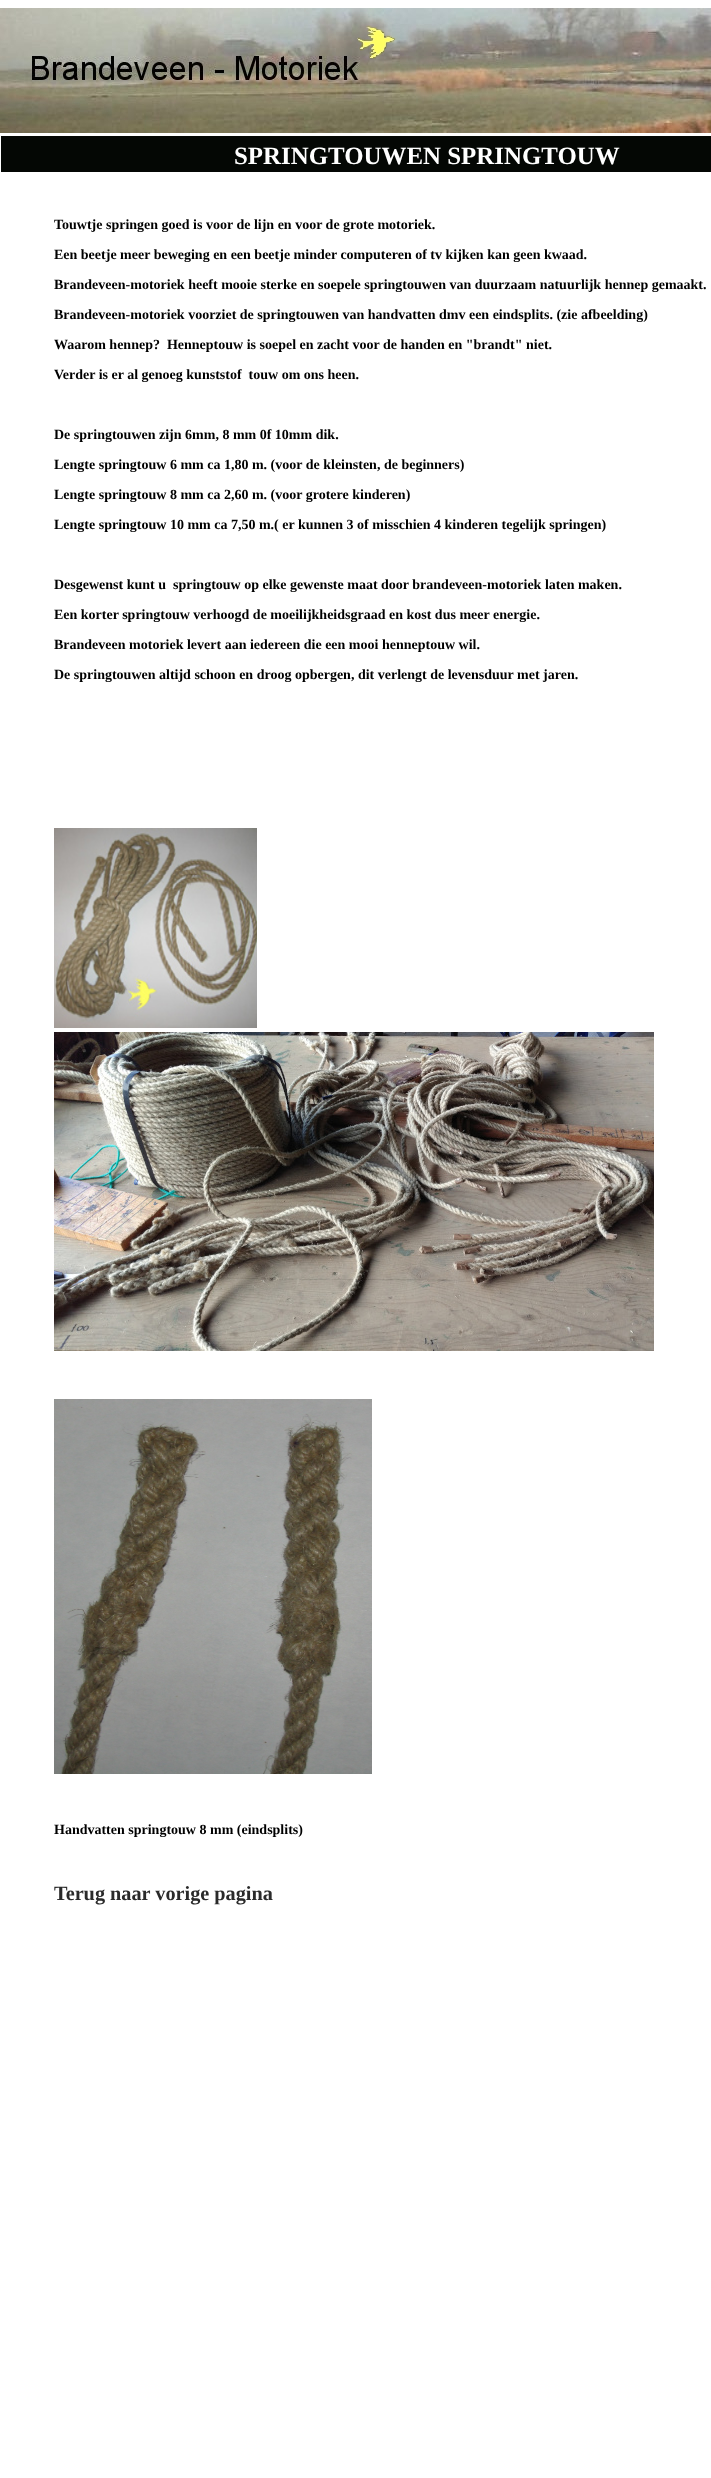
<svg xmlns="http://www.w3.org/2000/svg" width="711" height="2478">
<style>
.a{font:bold 24.9px Liberation Serif;fill:#fff}
.b{font:bold 14px Liberation Serif;fill:#000}
.c{font:bold 20.25px Liberation Serif;fill:#2a2a2a}
</style>
<rect width="100%" height="100%" fill="#fff"/>
<image href="1.png" x="0" y="8" width="711" height="125"/>
<path fill="#040704" d="M1 136h710v36H1z"/>
<image href="2.png" x="54" y="828" width="203" height="200"/>
<image href="3.png" x="54" y="1032" width="600" height="319"/>
<image href="4.png" x="54" y="1399" width="318" height="375"/>
<text class="a" x="234" y="164">SPRINGTOUWEN SPRINGTOUW</text>
<text class="b" x="54" y="229">Touwtje springen goed is voor de lijn en voor de grote motoriek.</text>
<text class="b" x="54" y="259">Een beetje meer beweging en een beetje minder computeren of tv kijken kan geen kwaad.</text>
<text class="b" x="54" y="289">Brandeveen-motoriek heeft mooie sterke en soepele springtouwen van duurzaam natuurlijk hennep gemaakt.</text>
<text class="b" x="54" y="319">Brandeveen-motoriek voorziet de springtouwen van handvatten dmv een eindsplits. (zie afbeelding)</text>
<text class="b" xml:space="preserve" x="54" y="349">Waarom hennep?  Henneptouw is soepel en zacht voor de handen en "brandt" niet.</text>
<text class="b" xml:space="preserve" x="54" y="379">Verder is er al genoeg kunststof  touw om ons heen.</text>
<text class="b" x="54" y="439">De springtouwen zijn 6mm, 8 mm 0f 10mm dik.</text>
<text class="b" x="54" y="469">Lengte springtouw 6 mm ca 1,80 m. (voor de kleinsten, de beginners)</text>
<text class="b" x="54" y="499">Lengte springtouw 8 mm ca 2,60 m. (voor grotere kinderen)</text>
<text class="b" x="54" y="529">Lengte springtouw 10 mm ca 7,50 m.( er kunnen 3 of misschien 4 kinderen tegelijk springen)</text>
<text class="b" xml:space="preserve" x="54" y="589">Desgewenst kunt u  springtouw op elke gewenste maat door brandeveen-motoriek laten maken.</text>
<text class="b" x="54" y="619">Een korter springtouw verhoogd de moeilijkheidsgraad en kost dus meer energie.</text>
<text class="b" x="54" y="649">Brandeveen motoriek levert aan iedereen die een mooi henneptouw wil.</text>
<text class="b" x="54" y="679">De springtouwen altijd schoon en droog opbergen, dit verlengt de levensduur met jaren.</text>
<text class="b" x="54" y="1834">Handvatten springtouw 8 mm (eindsplits)</text>
<text class="c" x="54" y="1900">Terug naar vorige pagina</text>
</svg>
